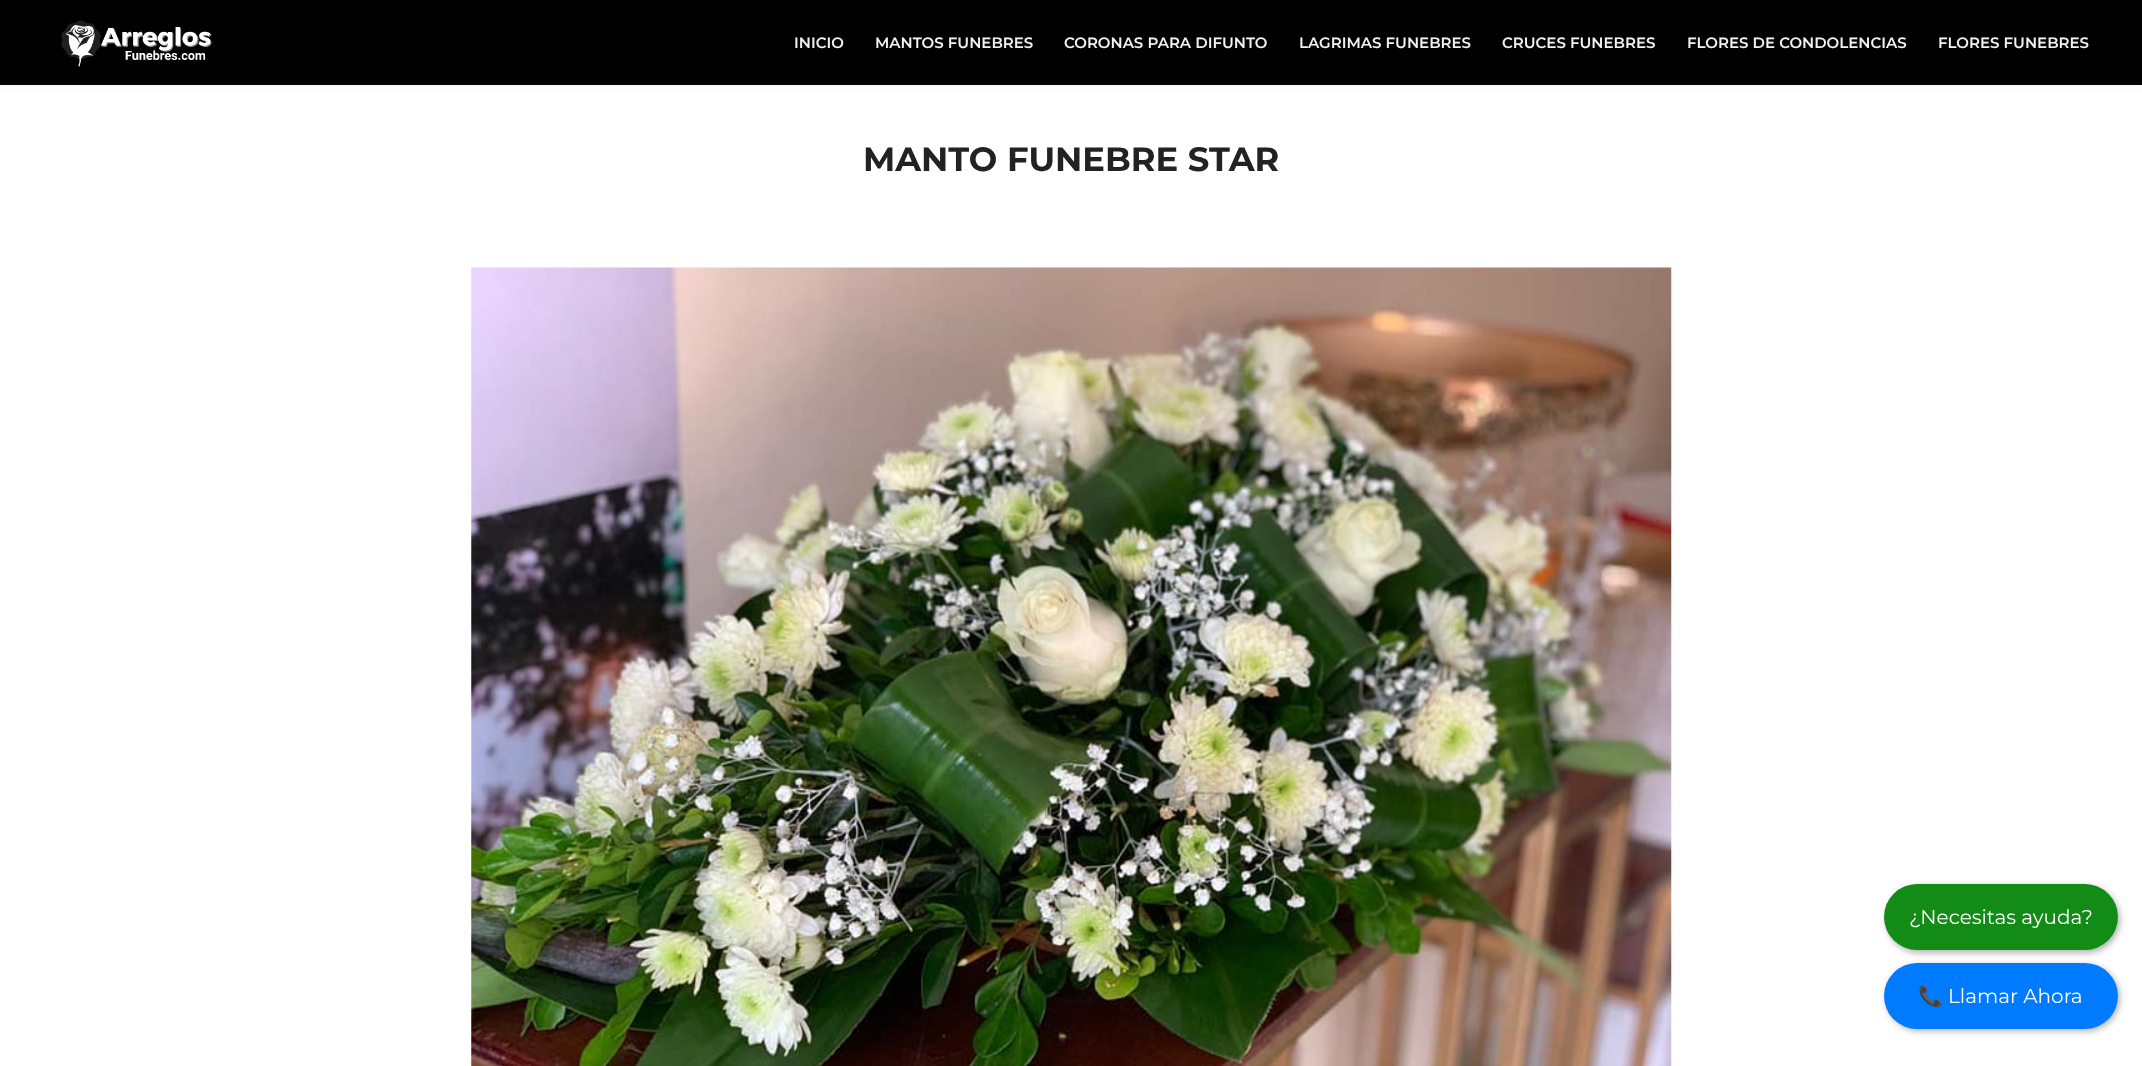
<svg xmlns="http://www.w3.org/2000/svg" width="2142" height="1066">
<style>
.a{font:600 15px Montserrat;fill:#f2f2f2}
.b{font:bold 33.75px Montserrat;fill:#222}
.c{font:20px Montserrat;fill:#fff}
.d{font:20px Noto Color Emoji;fill:#fff}
</style>
<rect width="100%" height="100%" fill="#fff"/>
<path fill="#0000000d" filter="blur(3px)" d="M-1 -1h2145v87H-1z"/>
<path fill="#000" d="M0 0h2142v85H0z"/>
<image href="1.png" x="61" y="20" width="151" height="47"/>
<image href="2.png" x="471" y="267" width="1201" height="799"/>
<rect fill="#0000004d" filter="blur(3px)" x="1886" y="886" width="234" height="67" rx="33.5"/>
<rect fill="#128c16" x="1884" y="884" width="234" height="66" rx="33"/>
<rect fill="#0000004d" filter="blur(3px)" x="1886" y="965" width="234" height="66" rx="33"/>
<rect fill="#007bff" x="1884" y="963" width="234" height="66" rx="33"/>
<text class="a" x="794" y="48">INICIO</text>
<text class="a" x="875" y="48">MANTOS FUNEBRES</text>
<text class="a" x="1064" y="48">CORONAS PARA DIFUNTO</text>
<text class="a" x="1299" y="48">LAGRIMAS FUNEBRES</text>
<text class="a" x="1502" y="48">CRUCES FUNEBRES</text>
<text class="a" x="1687" y="48">FLORES DE CONDOLENCIAS</text>
<text class="a" x="1938" y="48">FLORES FUNEBRES</text>
<text class="b" x="863" y="171">MANTO FUNEBRE STAR</text>
<text class="c" x="1909" y="924">¿Necesitas ayuda?</text>
<text class="d" x="1918" y="1003">📞</text>
<text class="c" x="1948" y="1003">Llamar Ahora</text>
</svg>
